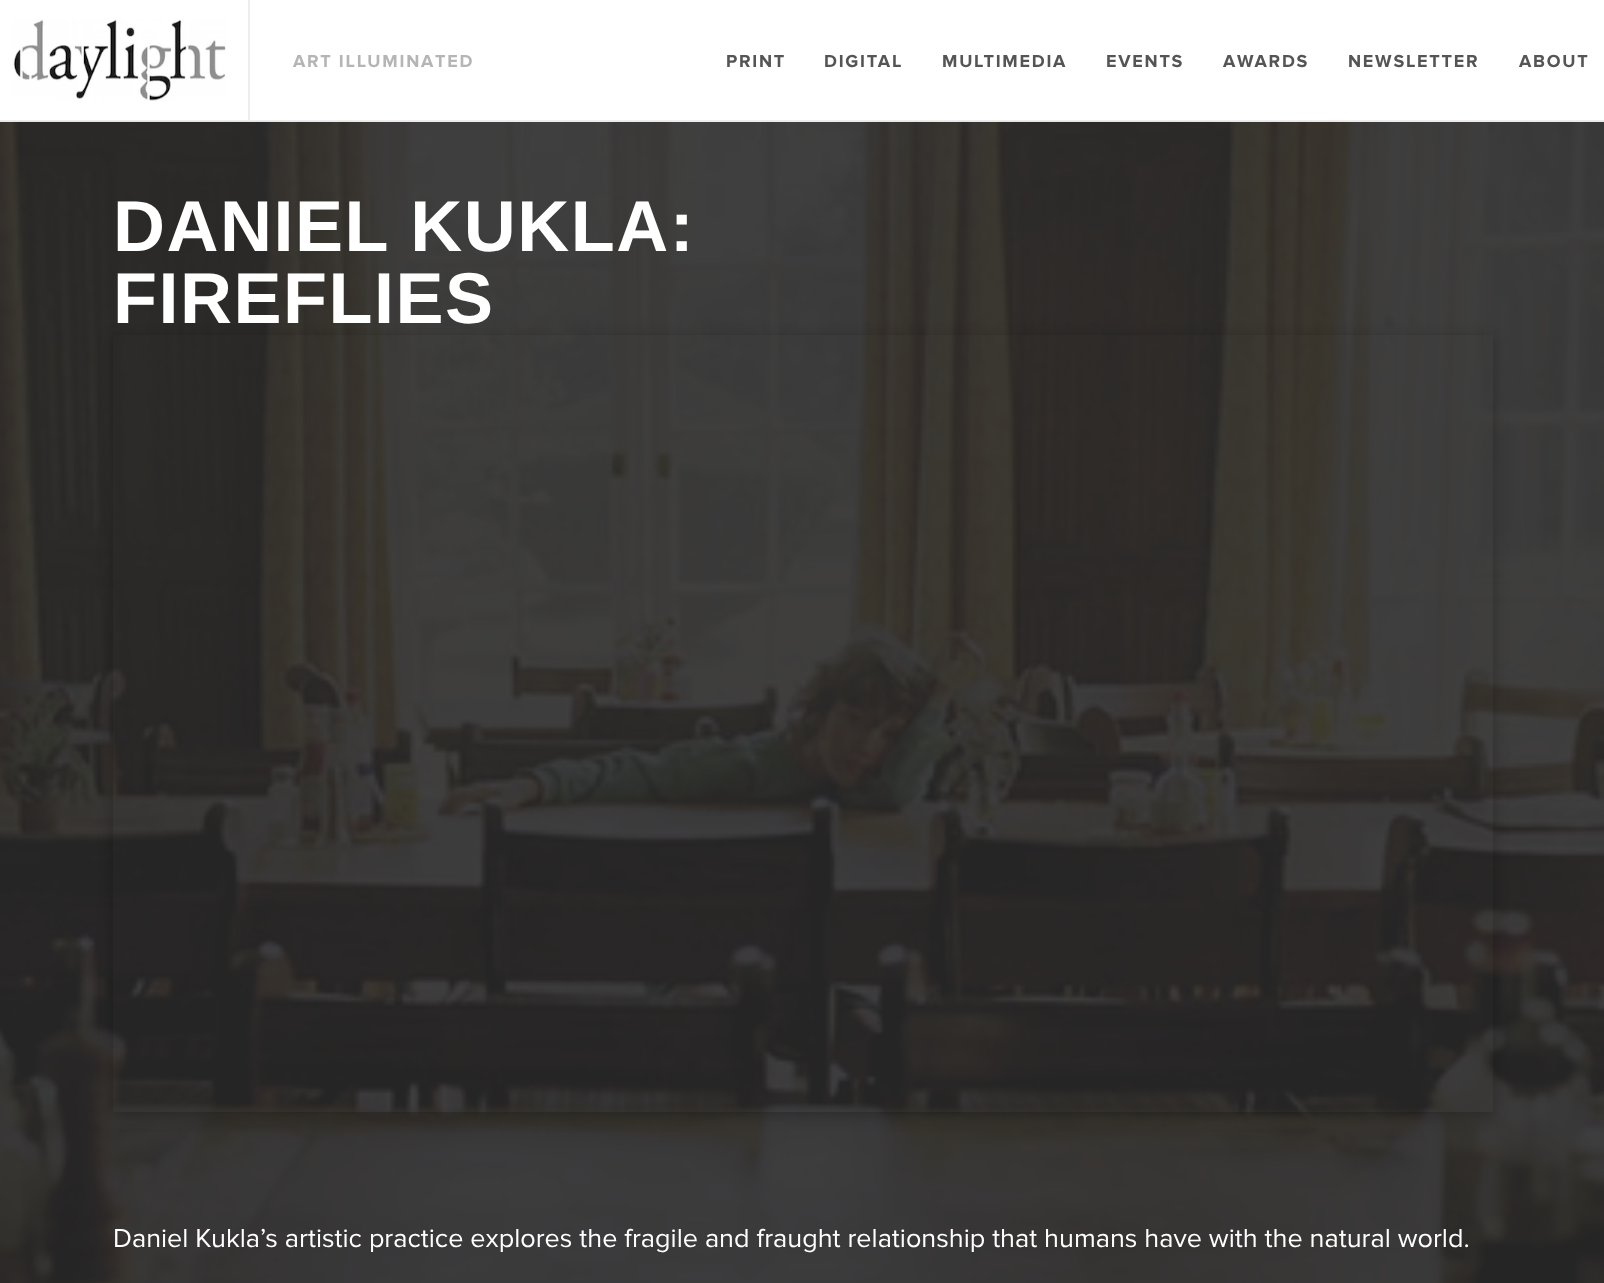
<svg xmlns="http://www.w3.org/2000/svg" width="1604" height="1283">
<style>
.a{font:bold 18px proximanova;letter-spacing:1.75px;fill:#b5b5b5}
.b{font:bold 18px proximanova;letter-spacing:1.75px;fill:#555}
.c{font:bold 72px Liberation Sans;letter-spacing:1.5px;fill:#fff}
.d{font:27px proximanova;fill:#fff}
</style>
<defs>
<clipPath id="clip1"><path d="M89 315h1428v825h-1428zm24 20h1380v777h-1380z" clip-rule="evenodd"/></clipPath>
</defs>
<rect width="100%" height="100%" fill="#fff"/>
<path fill="#2a2a2a" d="M0 122h1604v1161H0z"/>
<image href="2.png" x="0" y="121" width="1604" height="1162"/>
<path fill="#00000012" d="M0 120h1604v2H0z"/>
<image href="1.png" x="12" y="19" width="214" height="82"/>
<path fill="#eee" d="M248 0h2v120H248z"/>
<g clip-path="url(#clip1)">
<path fill="#00000040" filter="blur(7.5px)" d="M113 339h1380v777H113z"/>
</g>
<text class="a" x="293" y="67">ART ILLUMINATED</text>
<text class="b" x="726" y="67">PRINT</text>
<text class="b" x="824" y="67">DIGITAL</text>
<text class="b" x="942" y="67">MULTIMEDIA</text>
<text class="b" x="1106" y="67">EVENTS</text>
<text class="b" x="1223" y="67">AWARDS</text>
<text class="b" x="1348" y="67">NEWSLETTER</text>
<text class="b" x="1519" y="67">ABOUT</text>
<text class="c" x="113" y="251">DANIEL KUKLA:</text>
<text class="c" x="113" y="323">FIREFLIES</text>
<text class="d" x="113" y="1247">Daniel Kukla’s artistic practice explores the fragile and fraught relationship that humans have with the natural world.</text>
</svg>
